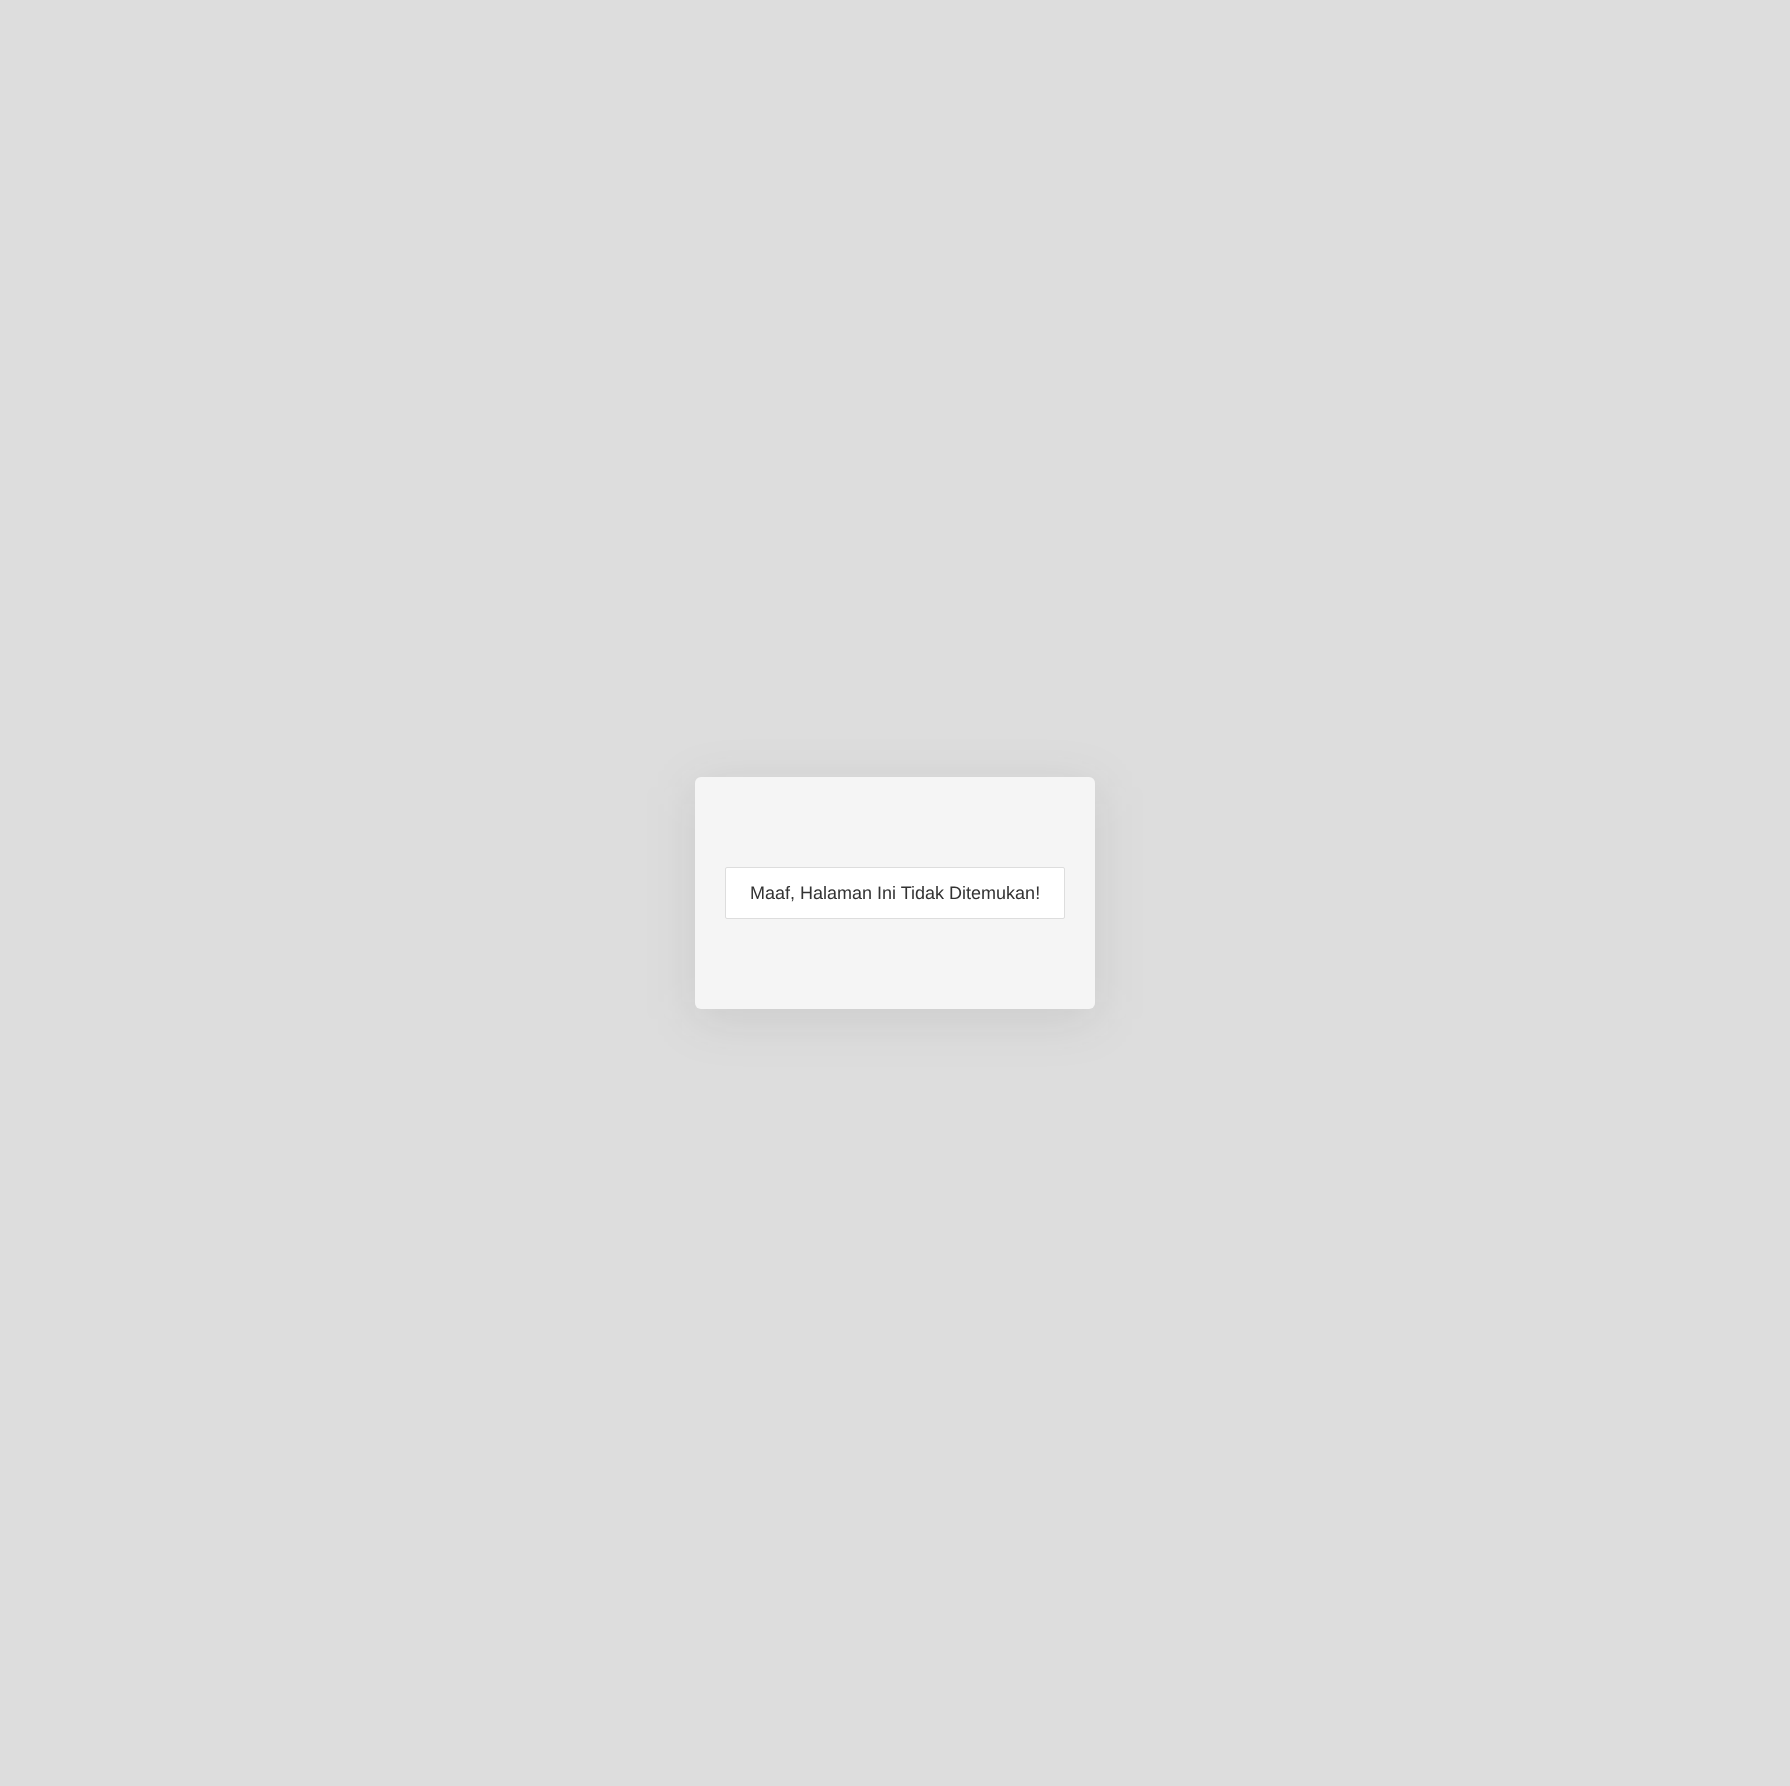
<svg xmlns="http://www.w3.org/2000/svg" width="1790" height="1786">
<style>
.a{font:18px Liberation Sans;fill:#333}
</style>
<rect width="100%" height="100%" fill="#ddd"/>
<rect fill="#3232321a" filter="blur(25px)" x="695" y="787" width="400" height="232" rx="6"/>
<rect fill="#f5f5f5" x="695" y="777" width="400" height="232" rx="6"/>
<rect fill="#fff" stroke="#ddd" x="725.5" y="867.5" width="339" height="51" rx="1.5"/>
<text class="a" x="750" y="899">Maaf, Halaman Ini Tidak Ditemukan!</text>
</svg>
